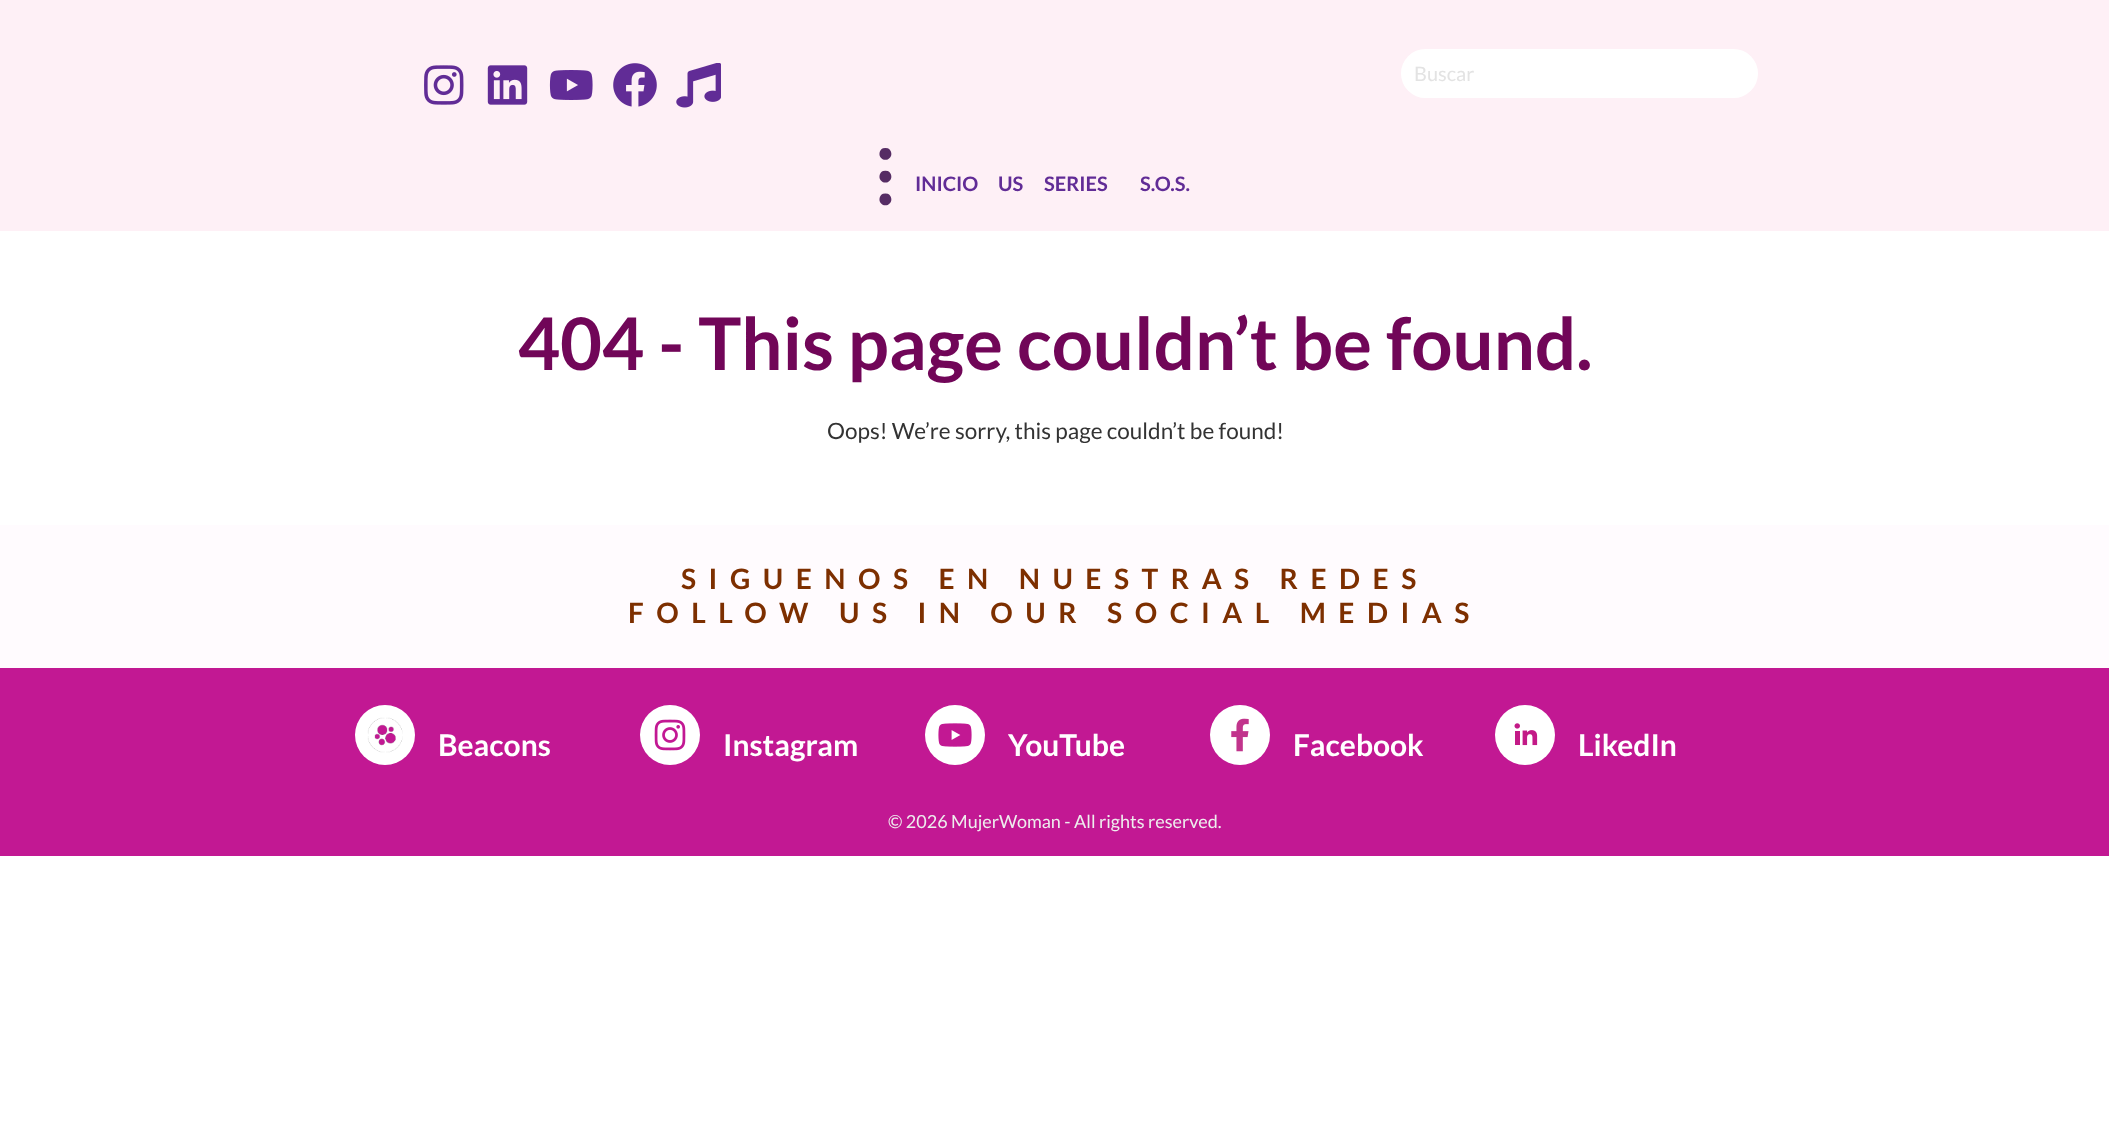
<svg xmlns="http://www.w3.org/2000/svg" width="2109" height="1126">
<style>
.a{font:20px Lato;fill:#e3e3e3}
.b{font:bold 79px Lato;letter-spacing:5px;fill:#562c64}
.c{font:bold 20px Lato;fill:#612c96}
.d{font:bold 72.5px Lato;fill:#710658}
.e{font:22.5px Lato;fill:#333}
.f{font:bold 28.1px Lato;letter-spacing:12.5px;fill:#7d2f00}
.g{font:bold 30px Lato;fill:#fff}
.h{font:18px Lato;fill:#eee}
</style>
<rect width="100%" height="100%" fill="#fff"/>
<path fill="#fef0f6" d="M0 0h2109v231H0z"/>
<image href="1.png" x="424" y="65" width="40" height="40"/>
<image href="2.png" x="487" y="65" width="41" height="40"/>
<image href="3.png" x="549" y="70" width="44" height="30"/>
<image href="4.png" x="613" y="63" width="44" height="44"/>
<image href="5.png" x="676" y="63" width="45" height="45"/>
<rect fill="#fff" x="1401" y="49" width="357" height="49" rx="24.5"/>
<path fill="#fffbfe" d="M0 525h2109v143H0z"/>
<path fill="#c21893" d="M0 668h2109v188H0z"/>
<circle fill="#fff" cx="385" cy="735" r="30"/>
<image href="6.png" x="367" y="717" width="36" height="36"/>
<circle fill="#fff" cx="670" cy="735" r="30"/>
<image href="7.png" x="654" y="719" width="32" height="32"/>
<circle fill="#fff" cx="955" cy="735" r="30"/>
<image href="8.png" x="938" y="723" width="34" height="24"/>
<circle fill="#fff" cx="1240" cy="735" r="30"/>
<image href="9.png" x="1231" y="718" width="18" height="34"/>
<circle fill="#fff" cx="1525" cy="735" r="30"/>
<image href="10.png" x="1514" y="723" width="24" height="23"/>
<text class="a" x="1414" y="81">Buscar</text>
<text class="b" x="880" y="145" transform="rotate(90 880 145)">...</text>
<text class="c" x="915" y="191">INICIO</text>
<text class="c" x="998" y="191">US</text>
<text class="c" x="1044" y="191">SERIES</text>
<text class="c" x="1140" y="191">S.O.S.</text>
<text class="d" x="518" y="370">404 - This page couldn’t be found.</text>
<text class="e" x="827" y="439">Oops! We’re sorry, this page couldn’t be found!</text>
<text class="f" x="681" y="589">SIGUENOS EN NUESTRAS REDES</text>
<text class="f" x="628" y="623">FOLLOW US IN OUR SOCIAL MEDIAS</text>
<text class="g" x="438" y="756">Beacons</text>
<text class="g" x="723" y="756">Instagram</text>
<text class="g" x="1008" y="756">YouTube</text>
<text class="g" x="1293" y="756">Facebook</text>
<text class="g" x="1578" y="756">LikedIn</text>
<text class="h" x="888" y="828">© 2026 MujerWoman - All rights reserved.</text>
</svg>
